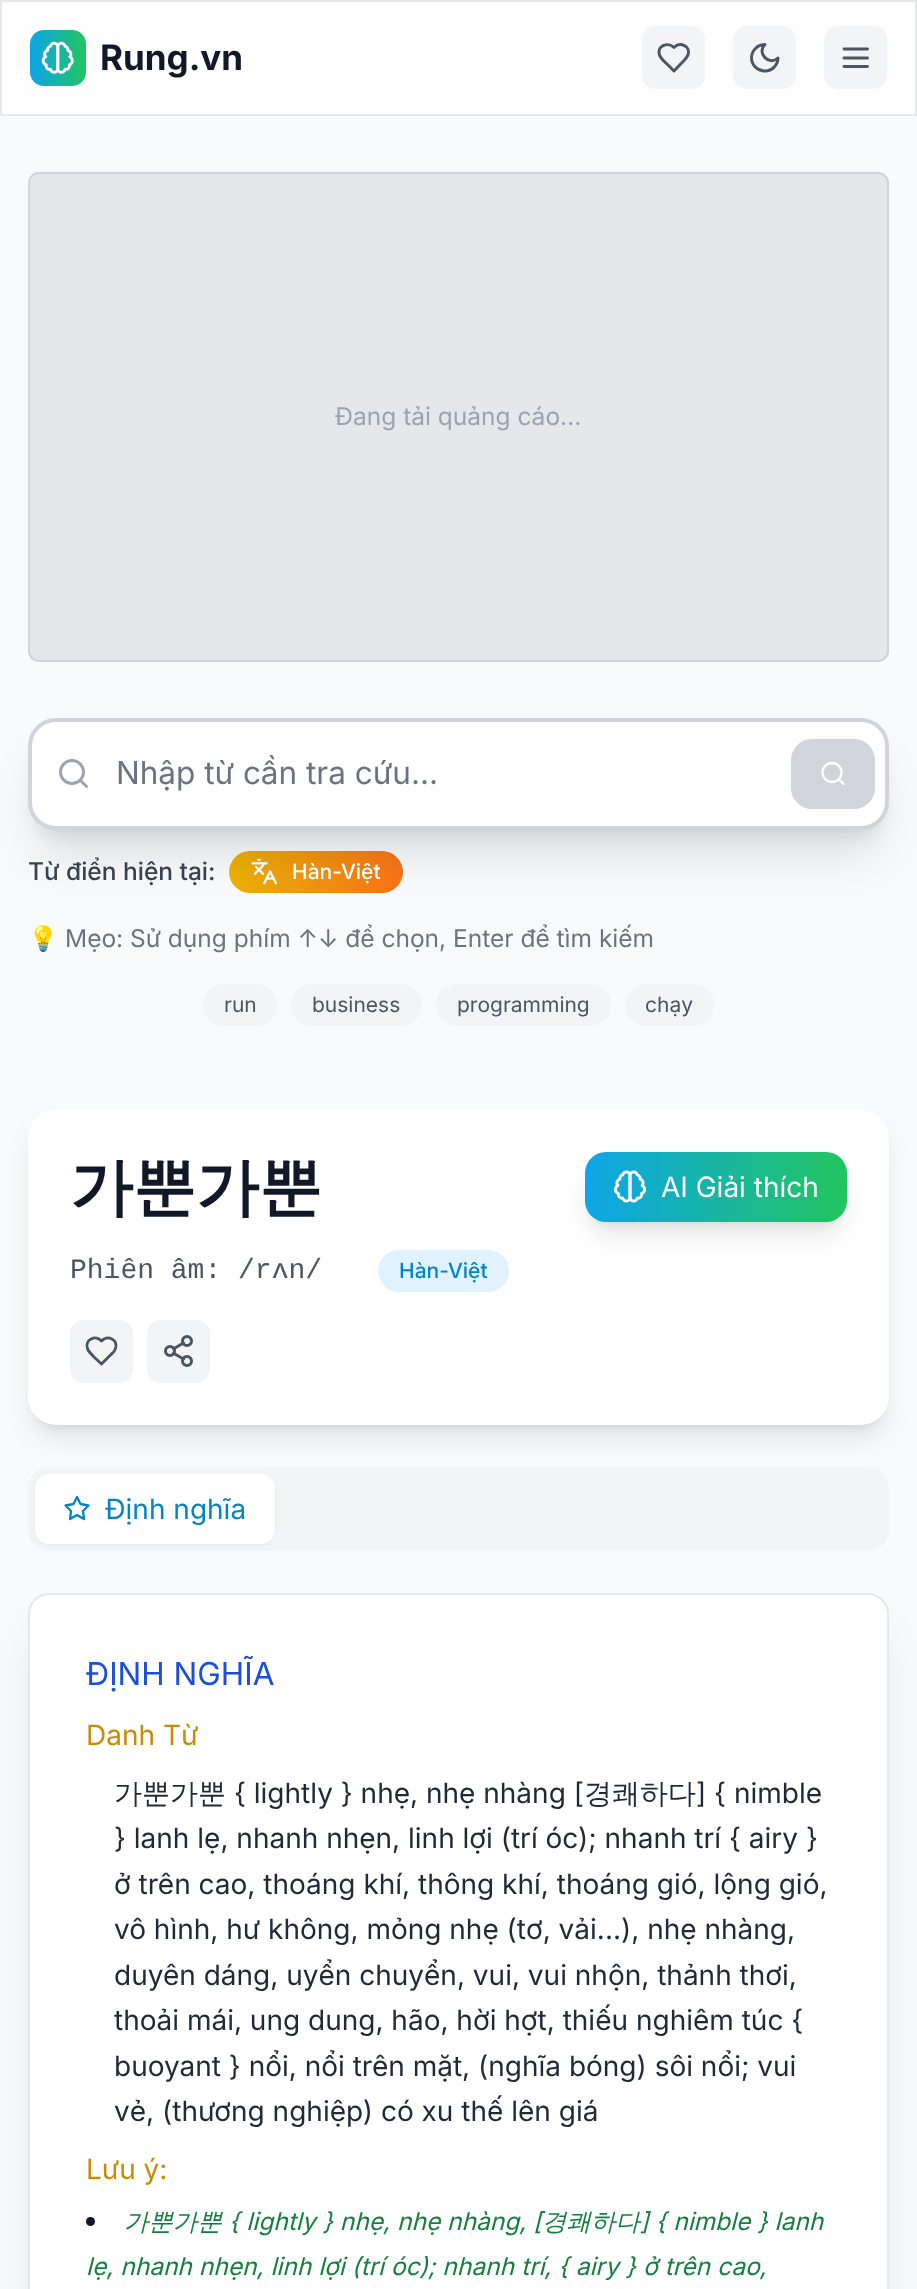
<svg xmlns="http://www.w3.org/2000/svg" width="917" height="2289">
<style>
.a{font:bold 35px Inter;fill:#111827}
.b{font:24.5px Inter;fill:#9ca3af}
.c{font:31.5px Inter;fill:#6b7280}
.d{font:500 24.5px Inter;fill:#374151}
.e{font:500 21px Inter;fill:#fff}
.f{font:24.5px Noto Color Emoji;fill:#6b7280}
.g{font:24.5px Inter;fill:#6b7280}
.h{font:21px Inter;fill:#4b5563}
.i{font:bold 63px WenQuanYi Zen Hei;fill:#111827}
.j{font:28px Liberation Mono;fill:#4b5563}
.k{font:500 21px Inter;fill:#0284c7}
.l{font:28px Inter;fill:#fff}
.m{font:28px Inter;fill:#0284c7}
.n{font:31.5px Inter;fill:#1d4ed8}
.o{font:28px Inter;fill:#ca8a04}
.p{font:500 28px WenQuanYi Zen Hei;fill:#1f2937}
.q{font:28px Inter;fill:#1f2937}
.r{font:italic 500 24.5px WenQuanYi Zen Hei;fill:#15803d}
.s{font:italic 24.5px Inter;fill:#15803d}
</style>
<defs>
<linearGradient id="g1" gradientUnits="userSpaceOnUse" x1="30" y1="58" x2="86" y2="58"><stop offset="0" stop-color="#0ea5e9"/><stop offset="1" stop-color="#22c55e"/></linearGradient>
<linearGradient id="g2" gradientUnits="userSpaceOnUse" x1="229" y1="872" x2="403" y2="872"><stop offset="0" stop-color="#eab308"/><stop offset="1" stop-color="#f97316"/></linearGradient>
<linearGradient id="g3" gradientUnits="userSpaceOnUse" x1="585" y1="1187" x2="847" y2="1187"><stop offset="0" stop-color="#0ea5e9"/><stop offset="1" stop-color="#22c55e"/></linearGradient>
</defs>
<rect width="100%" height="100%" fill="#f9fafb"/>
<path fill="#fefefe" stroke="#e5e7eb" stroke-width="2" d="M1 1h915v114H1z"/>
<rect fill="url(#g1)" x="30" y="30" width="56" height="56" rx="14"/>
<image href="1.png" x="41" y="41" width="33" height="33"/>
<rect fill="#f3f4f6" x="642" y="26" width="63" height="63" rx="14"/>
<path fill="none" stroke="#4b5563" stroke-width="2.9" stroke-linecap="round" stroke-linejoin="round" d="M684 60.5c1.5-1.5 3-3.5 4-5.5c3-9-8-13.5-14-7.5c-6.5-6-17.5-1.5-14.5 7.5c1 3.5 5 6.5 7.5 9l7 7z"/>
<rect fill="#f3f4f6" x="733" y="26" width="63" height="63" rx="14"/>
<path fill="none" stroke="#4b5563" stroke-width="2.9" stroke-linecap="round" stroke-linejoin="round" d="M765 44.5c-9 8.5 4.5 22 13 13.5c0 7-6 13-13 13c-7.5 0-13.5-6-13.5-13c0-7.5 6-13.5 13.5-13.5z"/>
<rect fill="#f3f4f6" x="824" y="26" width="63" height="63" rx="14"/>
<path fill="none" stroke="#4b5563" stroke-width="2.9" stroke-linecap="round" stroke-linejoin="round" d="M844 58h23.5m-23.5-9h23.5m-23.5 17.5h23.5"/>
<rect fill="#e5e7eb" stroke="#d1d5db" stroke-width="2" x="29" y="173" width="859" height="488" rx="10"/>
<rect fill="url(#g2)" x="229" y="851" width="174" height="42" rx="21"/>
<image href="2.png" x="251" y="858" width="26" height="27"/>
<rect fill="#0000001a" filter="blur(9px)" x="39" y="742" width="840" height="91" rx="18"/>
<rect fill="#0000001a" filter="blur(22px)" x="37" y="761" width="843" height="95" rx="19"/>
<rect fill="#fff" stroke="#d1d5db" stroke-width="4" x="30" y="720" width="857" height="108" rx="26"/>
<circle fill="none" stroke="#9ca3af" stroke-width="2.9" cx="72" cy="772" r="11.5"/>
<path fill="none" stroke="#9ca3af" stroke-width="2.9" stroke-linecap="round" stroke-linejoin="round" d="M86.5 786.5l-6-6"/>
<rect fill="#d1d5db" x="791" y="739" width="84" height="70" rx="21"/>
<circle fill="none" stroke="#fff" stroke-width="2.3" cx="832" cy="772.5" r="9.5"/>
<path fill="none" stroke="#fff" stroke-width="2.3" stroke-linecap="round" stroke-linejoin="round" d="M843.5 784l-5-5"/>
<rect fill="#f3f4f6" x="203" y="984" width="74" height="42" rx="21"/>
<rect fill="#f3f4f6" x="291" y="984" width="131" height="42" rx="21"/>
<rect fill="#f3f4f6" x="436" y="984" width="175" height="42" rx="21"/>
<rect fill="#f3f4f6" x="625" y="984" width="89" height="42" rx="21"/>
<rect fill="#0000001a" filter="blur(5px)" x="35" y="1124" width="847" height="301" rx="21"/>
<rect fill="#0000001a" filter="blur(13px)" x="33" y="1132" width="851" height="305" rx="23"/>
<rect fill="#fff" x="28" y="1110" width="861" height="315" rx="28"/>
<rect fill="#e0f2fe" x="378" y="1250" width="131" height="42" rx="21"/>
<rect fill="#f3f4f6" x="70" y="1320" width="63" height="63" rx="14"/>
<path fill="none" stroke="#4b5563" stroke-width="2.9" stroke-linecap="round" stroke-linejoin="round" d="M111.5 1354c2-1.5 3.5-3.5 4-5.5c3-9-8-14-14-7.5c-6-6.5-17-1.5-14 7.5c1 3.5 4.5 6 7 9l7 6.5z"/>
<rect fill="#f3f4f6" x="147" y="1320" width="63" height="63" rx="14"/>
<image href="3.png" x="164" y="1335" width="29" height="32"/>
<rect fill="#0000001a" filter="blur(5px)" x="592" y="1166" width="248" height="56" rx="14"/>
<rect fill="#0000001a" filter="blur(13px)" x="590" y="1174" width="252" height="60" rx="16"/>
<rect fill="url(#g3)" x="585" y="1152" width="262" height="70" rx="21"/>
<image href="4.png" x="614" y="1170" width="32" height="33"/>
<rect fill="#f3f4f6" x="28" y="1467" width="861" height="84" rx="21"/>
<rect fill="#0000000d" filter="blur(2px)" x="35" y="1475" width="240" height="70" rx="14"/>
<rect fill="#fff" x="35" y="1474" width="240" height="70" rx="14"/>
<path fill="none" stroke="#0284c7" stroke-width="2.3" stroke-linecap="round" stroke-linejoin="round" d="M77 1497l3.5 7l8 1.5l-5.5 5.5l1 8l-7-4l-7 4l1-8l-5.5-5.5l8-1.5z"/>
<rect fill="#0000001a" filter="blur(22px)" x="37" y="1636" width="843" height="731" rx="12"/>
<rect fill="#fff" stroke="#e5e7eb" stroke-width="2" x="29" y="1594" width="859" height="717" rx="20"/>
<circle fill="#111827" cx="90.5" cy="2221.5" r="4.5"/>
<text class="a" x="100" y="70">Rung.vn</text>
<text class="b" x="335" y="425">Đang tải quảng cáo...</text>
<text class="c" x="116" y="784">Nhập từ cần tra cứu...</text>
<text class="d" x="28" y="880">Từ điển hiện tại:</text>
<text class="e" x="292" y="879">Hàn-Việt</text>
<text class="f" x="28" y="947">💡</text>
<text class="g" x="65" y="947">Mẹo: Sử dụng phím ↑↓ để chọn, Enter để tìm kiếm</text>
<text class="h" x="224" y="1012">run</text>
<text class="h" x="312" y="1012">business</text>
<text class="h" x="457" y="1012">programming</text>
<text class="h" x="645" y="1012">chạy</text>
<text class="i" x="70" y="1209">가뿐가뿐</text>
<text class="j" x="70" y="1278">Phiên âm: /rʌn/</text>
<text class="k" x="399" y="1278">Hàn-Việt</text>
<text class="l" x="661" y="1197">AI Giải thích</text>
<text class="m" x="105" y="1519">Định nghĩa</text>
<text class="n" x="86" y="1685">ĐỊNH NGHĨA</text>
<text class="o" x="86" y="1745">Danh Từ</text>
<text class="p" x="114" y="1803">가뿐가뿐</text>
<text class="q" x="234" y="1803">{ lightly } nhẹ, nhẹ nhàng [</text>
<text class="p" x="584" y="1803">경쾌하다</text>
<text class="q" x="696" y="1803">] { nimble</text>
<text class="q" x="114" y="1848">} lanh lẹ, nhanh nhẹn, linh lợi (trí óc); nhanh trí { airy }</text>
<text class="q" x="114" y="1894">ở trên cao, thoáng khí, thông khí, thoáng gió, lộng gió,</text>
<text class="q" x="114" y="1939">vô hình, hư không, mỏng nhẹ (tơ, vải...), nhẹ nhàng,</text>
<text class="q" x="114" y="1985">duyên dáng, uyển chuyển, vui, vui nhộn, thảnh thơi,</text>
<text class="q" x="114" y="2030">thoải mái, ung dung, hão, hời hợt, thiếu nghiêm túc {</text>
<text class="q" x="114" y="2076">buoyant } nổi, nổi trên mặt, (nghĩa bóng) sôi nổi; vui</text>
<text class="q" x="114" y="2121">vẻ, (thương nghiệp) có xu thế lên giá</text>
<text class="o" x="86" y="2179">Lưu ý:</text>
<text class="r" x="124" y="2230">가뿐가뿐</text>
<text class="s" x="229" y="2230">{ lightly } nhẹ, nhẹ nhàng, [</text>
<text class="r" x="542" y="2230">경쾌하다</text>
<text class="s" x="640" y="2230">] { nimble } lanh</text>
<text class="s" x="86" y="2275">lẹ, nhanh nhẹn, linh lợi (trí óc); nhanh trí, { airy } ở trên cao,</text>
</svg>
